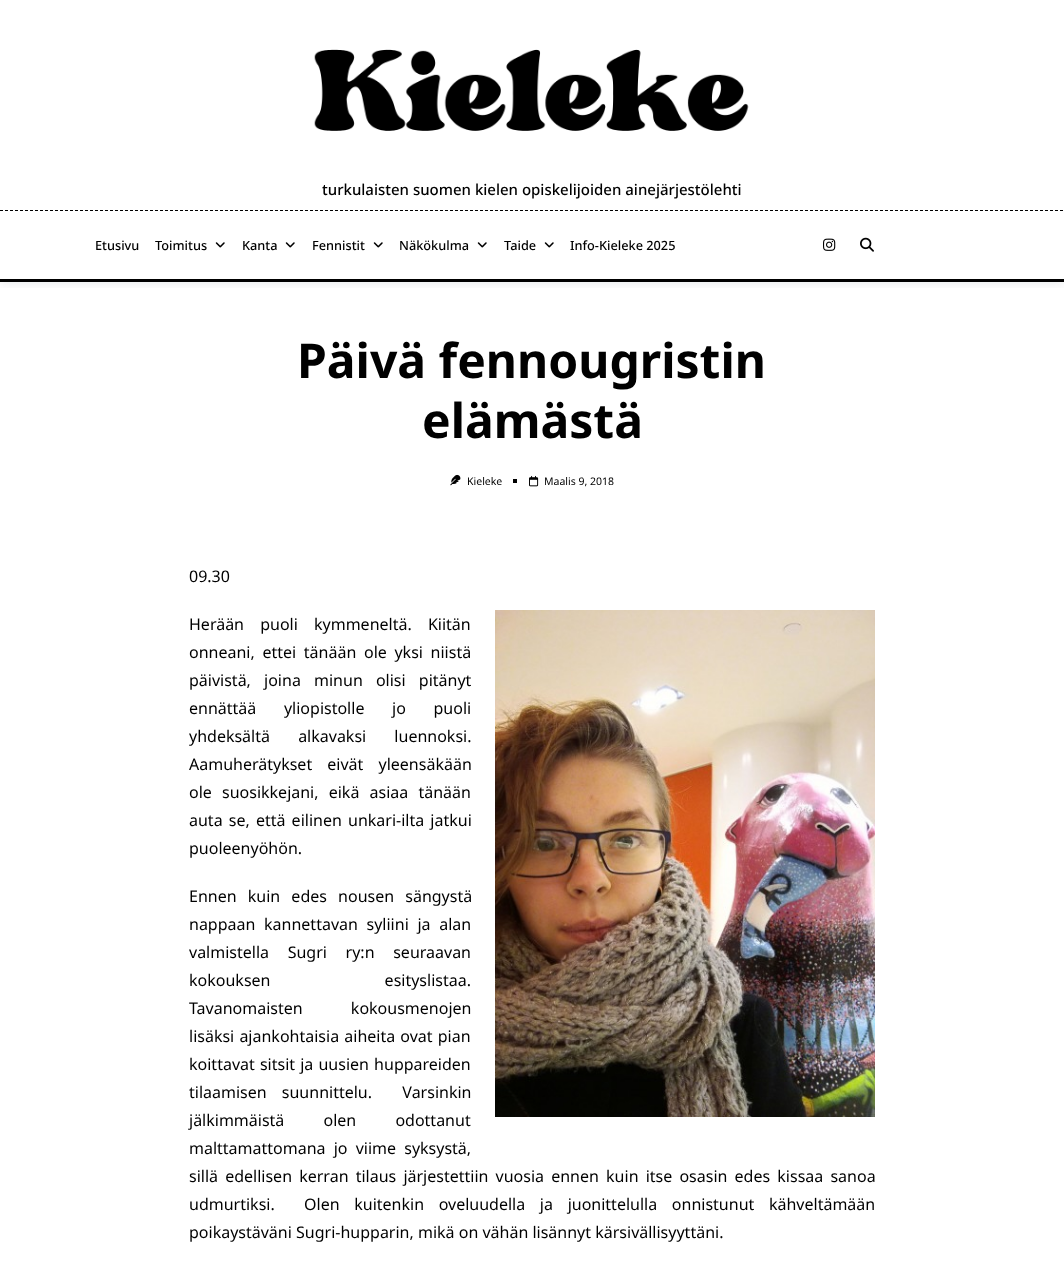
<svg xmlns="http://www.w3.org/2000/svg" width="1064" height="1263">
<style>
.a{font:500 15px Noto Sans;fill:#000}
.b{font:500 12.75px Noto Sans;fill:#000}
.c{font:bold 48px Noto Sans;fill:#000}
.d{font:10.5px Noto Sans;fill:#000}
.e{font:16px Noto Sans;fill:#000}
</style>
<defs>
<clipPath id="clip1"><path d="M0 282h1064v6H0z"/></clipPath>
</defs>
<rect width="100%" height="100%" fill="#fff"/>
<g clip-path="url(#clip1)">
<path fill="#2c3e501a" filter="blur(5px)" d="M0 213h1064v71H0z"/>
</g>
<path fill="#fff" d="M0 207h1064v4H0z"/>
<path fill="none" stroke="#000" stroke-dasharray="3 2" d="M0 210.5h1064"/>
<image href="1.png" x="314" y="49" width="435" height="82"/>
<path fill="#000" d="M0 279h1064v3H0z"/>
<image href="2.png" x="215" y="242" width="10" height="6"/>
<image href="2.png" x="285" y="242" width="10" height="6"/>
<image href="2.png" x="373" y="242" width="10" height="6"/>
<image href="2.png" x="477" y="242" width="10" height="6"/>
<image href="2.png" x="544" y="242" width="10" height="6"/>
<image href="3.png" x="823" y="238" width="13" height="13"/>
<image href="4.png" x="860" y="237" width="14" height="15"/>
<image href="5.png" x="450" y="474" width="11" height="12"/>
<path fill="#000" d="M513 479h4v4H513z"/>
<image href="6.png" x="529" y="475" width="10" height="12"/>
<image href="7.png" x="495" y="610" width="380" height="507"/>
<text class="a" x="322" y="195">turkulaisten suomen kielen opiskelijoiden ainejärjestölehti</text>
<text class="b" x="95" y="250">Etusivu</text>
<text class="b" x="155" y="250">Toimitus</text>
<text class="b" x="242" y="250">Kanta</text>
<text class="b" x="312" y="250">Fennistit</text>
<text class="b" x="399" y="250">Näkökulma</text>
<text class="b" x="504" y="250">Taide</text>
<text class="b" x="570" y="250">Info-Kieleke 2025</text>
<text class="c" x="297" y="378">Päivä fennougristin</text>
<text class="c" x="422" y="438">elämästä</text>
<text class="d" x="467" y="485">Kieleke</text>
<text class="d" x="544" y="485">Maalis 9, 2018</text>
<text class="e" x="189" y="582">09.30</text>
<text class="e" x="189" y="630" word-spacing="12">Herään puoli kymmeneltä. Kiitän</text>
<text class="e" x="189" y="658" word-spacing="3.5">onneani, ettei tänään ole yksi niistä</text>
<text class="e" x="189" y="686" word-spacing="9">päivistä, joina minun olisi pitänyt</text>
<text class="e" x="189" y="714" word-spacing="23.5">ennättää yliopistolle jo puoli</text>
<text class="e" x="189" y="742" word-spacing="24">yhdeksältä alkavaksi luennoksi.</text>
<text class="e" x="189" y="770" word-spacing="11">Aamuherätykset eivät yleensäkään</text>
<text class="e" x="189" y="798" word-spacing="6">ole suosikkejani, eikä asiaa tänään</text>
<text class="e" x="189" y="826" word-spacing="2">auta se, että eilinen unkari-ilta jatkui</text>
<text class="e" x="189" y="854">puoleenyöhön.</text>
<text class="e" x="189" y="902" word-spacing="7">Ennen kuin edes nousen sängystä</text>
<text class="e" x="189" y="930" word-spacing="4.5">nappaan kannettavan syliini ja alan</text>
<text class="e" x="189" y="958" word-spacing="14.5">valmistella Sugri ry:n seuraavan</text>
<text class="e" x="189" y="986" word-spacing="110">kokouksen esityslistaa.</text>
<text class="e" x="189" y="1014" word-spacing="44">Tavanomaisten kokousmenojen</text>
<text class="e" x="189" y="1042" word-spacing="1">lisäksi ajankohtaisia aiheita ovat pian</text>
<text class="e" x="189" y="1070" word-spacing="1">koittavat sitsit ja uusien huppareiden</text>
<text class="e" xml:space="preserve" x="189" y="1098" word-spacing="11">tilaamisen suunnittelu.  Varsinkin</text>
<text class="e" x="189" y="1126" word-spacing="35">jälkimmäistä olen odottanut</text>
<text class="e" x="189" y="1154" word-spacing="4">malttamattomana jo viime syksystä,</text>
<text class="e" x="189" y="1182" word-spacing="3">sillä edellisen kerran tilaus järjestettiin vuosia ennen kuin itse osasin edes kissaa sanoa</text>
<text class="e" xml:space="preserve" x="189" y="1210" word-spacing="10.5">udmurtiksi.  Olen kuitenkin oveluudella ja juonittelulla onnistunut kähveltämään</text>
<text class="e" x="189" y="1238">poikaystäväni Sugri-hupparin, mikä on vähän lisännyt kärsivällisyyttäni.</text>
</svg>
